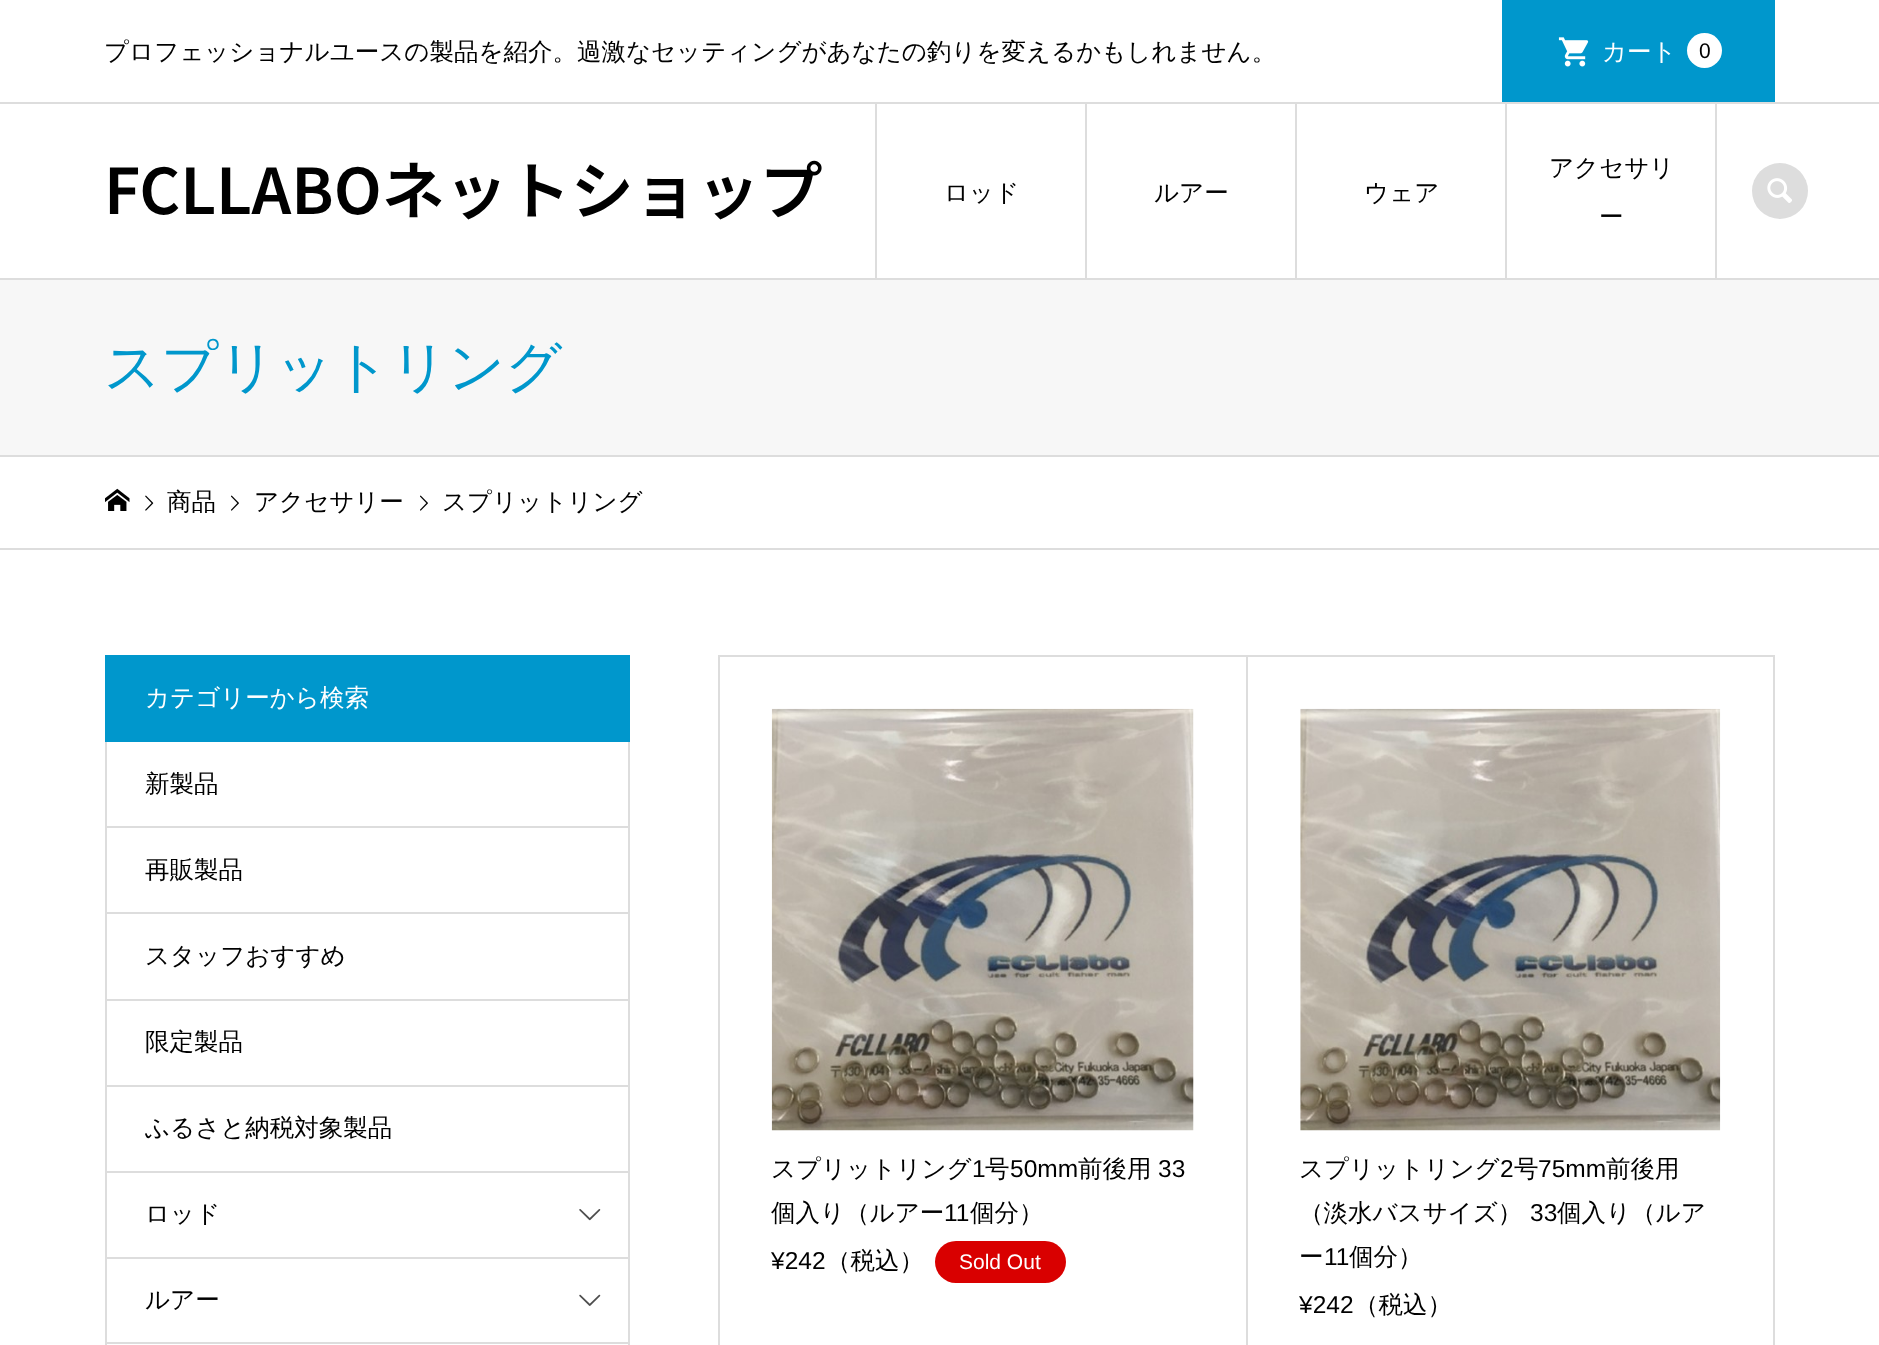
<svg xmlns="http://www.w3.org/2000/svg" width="1879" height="1345">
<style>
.a{font:500 24.5px WenQuanYi Zen Hei;fill:#000}
.b{font:500 24.5px WenQuanYi Zen Hei;fill:#fff}
.c{font:21px Liberation Sans;fill:#000}
.d{font:600 63px Noto Sans JP;fill:#000}
.e{font:500 56px WenQuanYi Zen Hei;fill:#0097cc}
.f{font:24.5px Liberation Sans;fill:#000}
.g{font:21px Liberation Sans;fill:#fff}
</style>
<rect width="100%" height="100%" fill="#fff"/>
<path fill="#ddd" d="M0 102h1879v2H0z"/>
<path fill="#0097cc" d="M1502 0h273v102H1502z"/>
<image href="1.png" x="1558" y="37" width="31" height="30"/>
<circle fill="#fff" cx="1704.5" cy="50.5" r="17.5"/>
<path fill="#ddd" d="M0 278h1879v2H0z"/>
<path fill="#ddd" d="M875 103h2v175H875z"/>
<path fill="#ddd" d="M1085 103h2v177H1085z"/>
<path fill="#ddd" d="M1295 103h2v177H1295z"/>
<path fill="#ddd" d="M1505 103h2v177H1505z"/>
<path fill="#ddd" d="M1715 103h2v177H1715z"/>
<circle fill="#ddd" cx="1780" cy="191" r="28"/>
<image href="2.png" x="1767" y="178" width="25" height="25"/>
<path fill="#f7f7f7" d="M0 280h1879v175H0z"/>
<path fill="#ddd" d="M0 455h1879v2H0z"/>
<path fill="#ddd" d="M0 548h1879v2H0z"/>
<image href="3.png" x="105" y="488" width="25" height="23"/>
<image href="4.png" x="145" y="495" width="9" height="16"/>
<image href="5.png" x="231" y="495" width="8" height="16"/>
<image href="5.png" x="420" y="495" width="8" height="16"/>
<path fill="#ddd" d="M628 740h2v605H628z"/>
<path fill="#ddd" d="M105 740h2v605H105z"/>
<path fill="#0097cc" d="M105 655h525v87H105z"/>
<path fill="#ddd" d="M107 826h521v2H107z"/>
<path fill="#ddd" d="M107 912h521v2H107z"/>
<path fill="#ddd" d="M107 999h521v2H107z"/>
<path fill="#ddd" d="M107 1085h521v2H107z"/>
<path fill="#ddd" d="M107 1171h521v2H107z"/>
<image href="6.png" x="579" y="1209" width="22" height="12"/>
<path fill="#ddd" d="M107 1257h521v2H107z"/>
<image href="7.png" x="579" y="1294" width="22" height="12"/>
<path fill="#ddd" d="M107 1342h521v2H107z"/>
<path fill="#ddd" d="M718 655h2v690H718z"/>
<path fill="#ddd" d="M719 655h1056v2H719z"/>
<path fill="#ddd" d="M1246 655h2v690H1246z"/>
<image href="8.png" x="771" y="708" width="423" height="423"/>
<rect fill="#d90000" x="935" y="1241" width="131" height="42" rx="21"/>
<path fill="#ddd" d="M1773 655h2v690H1773z"/>
<image href="9.png" x="1300" y="708" width="421" height="423"/>
<text class="a" x="104" y="60">プロフェッショナルユースの製品を紹介。過激なセッティングがあなたの釣りを変えるかもしれません。</text>
<text class="b" x="1602" y="60">カート</text>
<text class="c" x="1699" y="58">0</text>
<text class="d" x="104" y="214">FCLLABOネットショップ</text>
<text class="a" x="944" y="201">ロッド</text>
<text class="a" x="1154" y="201">ルアー</text>
<text class="a" x="1364" y="201">ウェア</text>
<text class="a" x="1549" y="176">アクセサリ</text>
<text class="a" x="1599" y="225">ー</text>
<text class="e" x="104" y="386">スプリットリング</text>
<text class="a" x="167" y="510">商品</text>
<text class="a" x="254" y="510">アクセサリー</text>
<text class="a" x="442" y="510">スプリットリング</text>
<text class="b" x="145" y="706">カテゴリーから検索</text>
<text class="a" x="145" y="792">新製品</text>
<text class="a" x="145" y="878">再販製品</text>
<text class="a" x="145" y="964">スタッフおすすめ</text>
<text class="a" x="145" y="1050">限定製品</text>
<text class="a" x="145" y="1136">ふるさと納税対象製品</text>
<text class="a" x="145" y="1222">ロッド</text>
<text class="a" x="145" y="1308">ルアー</text>
<text class="a" x="771" y="1177">スプリットリング</text>
<text class="f" x="972" y="1177">1</text>
<text class="a" x="985" y="1177">号</text>
<text class="f" x="1010" y="1177">50mm</text>
<text class="a" x="1078" y="1177">前後用</text>
<text class="f" x="1158" y="1177">33</text>
<text class="a" x="771" y="1221">個入り（ルアー</text>
<text class="f" x="944" y="1221">11</text>
<text class="a" x="970" y="1221">個分）</text>
<text class="f" x="771" y="1269">¥242</text>
<text class="a" x="826" y="1269">（税込）</text>
<text class="g" x="959" y="1269">Sold Out</text>
<text class="a" x="1299" y="1177">スプリットリング</text>
<text class="f" x="1500" y="1177">2</text>
<text class="a" x="1514" y="1177">号</text>
<text class="f" x="1538" y="1177">75mm</text>
<text class="a" x="1606" y="1177">前後用</text>
<text class="a" x="1299" y="1221">（淡水バスサイズ）</text>
<text class="f" x="1530" y="1221">33</text>
<text class="a" x="1557" y="1221">個入り（ルア</text>
<text class="a" x="1299" y="1265">ー</text>
<text class="f" x="1324" y="1265">11</text>
<text class="a" x="1349" y="1265">個分）</text>
<text class="f" x="1299" y="1313">¥242</text>
<text class="a" x="1354" y="1313">（税込）</text>
</svg>
